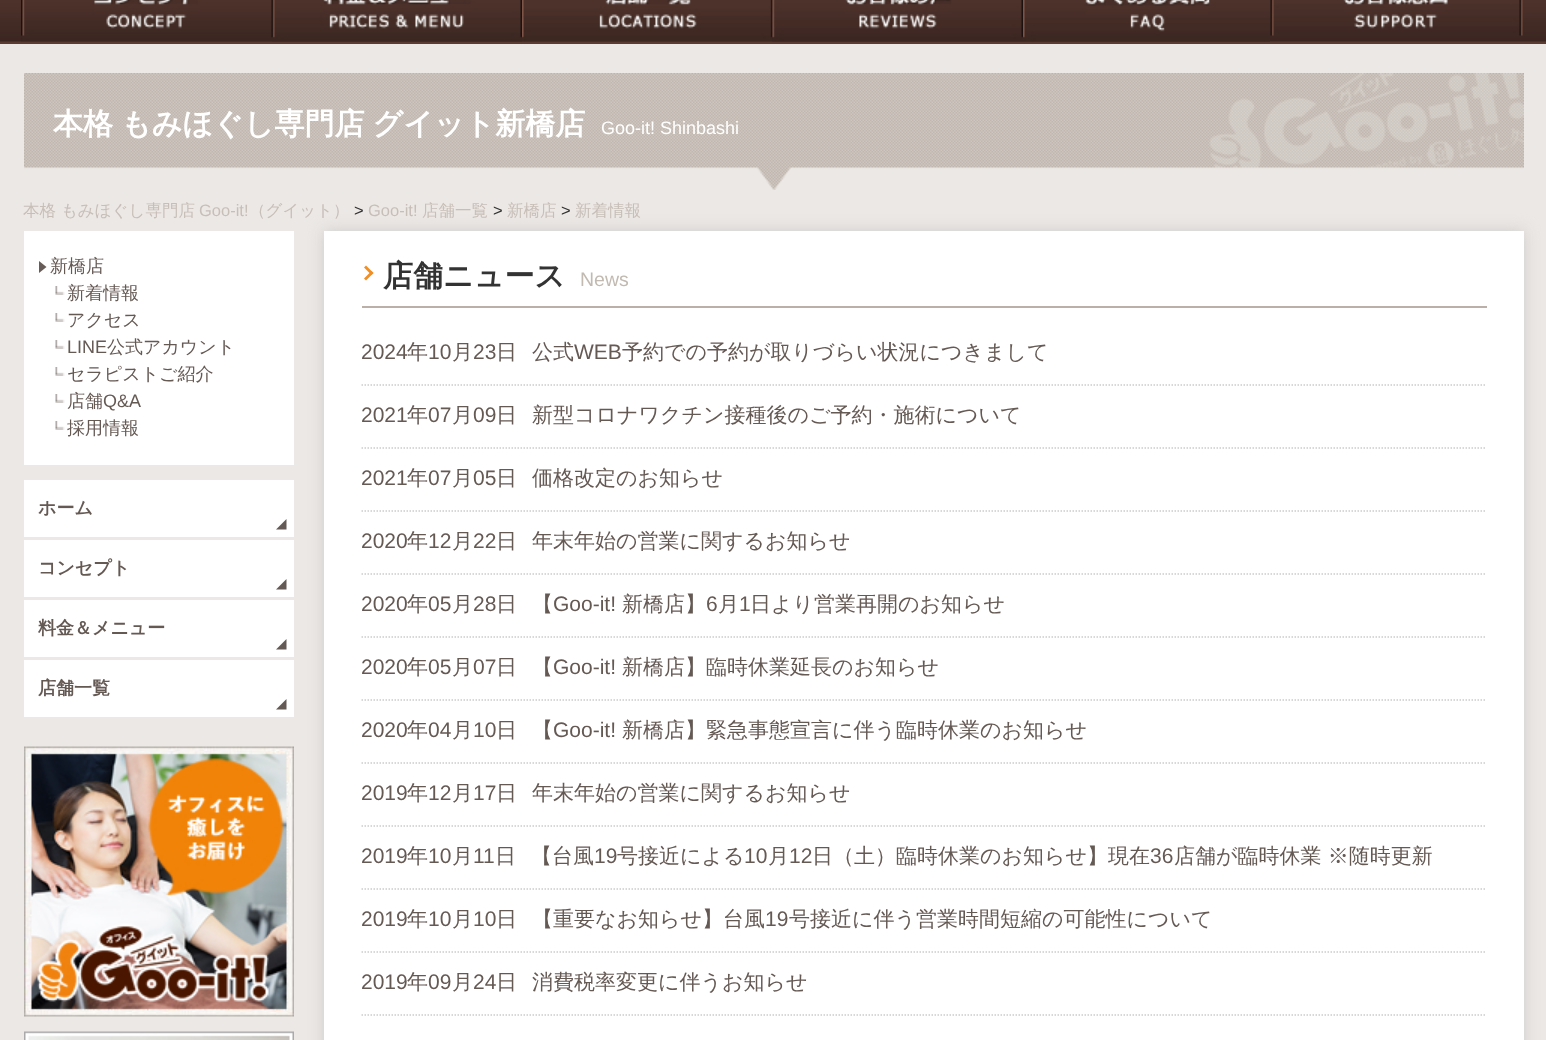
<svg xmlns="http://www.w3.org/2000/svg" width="1546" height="1040">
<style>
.a{font:bold 30px WenQuanYi Zen Hei;fill:#fff}
.b{font:18px Liberation Sans;fill:#fff}
.c{font:500 16.5px WenQuanYi Zen Hei;fill:#c7beb7}
.d{font:16.5px Liberation Sans;fill:#c7beb7}
.e{font:16.5px Liberation Sans;fill:#333}
.f{font:500 18px WenQuanYi Zen Hei;fill:#655954}
.g{font:18px Liberation Sans;fill:#655954}
.h{font:bold 18px WenQuanYi Zen Hei;fill:#655954}
.i{font:bold 30px WenQuanYi Zen Hei;fill:#333}
.j{font:19.5px Liberation Sans;fill:#c2bab1}
.k{font:21px Liberation Sans;fill:#655954}
.l{font:500 21px WenQuanYi Zen Hei;fill:#655954}
</style>
<rect width="100%" height="100%" fill="#ece8e5"/>
<image href="1.png" x="0" y="0" width="1546" height="42"/>
<path fill="#5b3c33" d="M0 42h1546v2H0z"/>
<image href="2.png" x="21" y="0" width="250" height="42"/>
<image href="3.png" x="271" y="0" width="251" height="42"/>
<image href="4.png" x="522" y="0" width="251" height="42"/>
<image href="5.png" x="772" y="0" width="251" height="42"/>
<image href="6.png" x="1023" y="0" width="247" height="42"/>
<image href="7.png" x="1270" y="0" width="253" height="36"/>
<image href="8.png" x="24" y="73" width="1500" height="117"/>
<path fill="#fff" d="M24 231h270v234H24z"/>
<path fill="#675c57" d="M39 273v-12l7.5 6z"/>
<image href="9.png" x="55" y="286" width="10" height="9"/>
<image href="9.png" x="55" y="313" width="10" height="9"/>
<image href="9.png" x="55" y="340" width="10" height="9"/>
<image href="9.png" x="55" y="367" width="10" height="9"/>
<image href="9.png" x="55" y="394" width="10" height="9"/>
<image href="9.png" x="55" y="421" width="10" height="9"/>
<path fill="#fff" d="M24 480h270v57H24z"/>
<path fill="#655955" d="M286.5 529.5h-10.5l10.5-10.5z"/>
<path fill="#fff" d="M24 540h270v57H24z"/>
<path fill="#655955" d="M286.5 589.5h-10.5l10.5-10.5z"/>
<path fill="#fff" d="M24 600h270v57H24z"/>
<path fill="#655955" d="M286.5 649.5h-10.5l10.5-10.5z"/>
<path fill="#fff" d="M24 660h270v57H24z"/>
<path fill="#655955" d="M286.5 709.5h-10.5l10.5-10.5z"/>
<image href="10.png" x="24" y="746" width="270" height="271"/>
<image href="11.png" x="24" y="1031" width="270" height="9"/>
<path fill="#ccc" filter="blur(7.5px)" d="M324 231h1200v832H324z"/>
<path fill="#fff" d="M324 231h1200v809H324z"/>
<path fill="#bab0a7" d="M362 306h1125v2H362z"/>
<path fill="#f18f23" d="M366 265.5l7.5 7.5l-2 2l-7.5-7.5z"/>
<path fill="#f18f23" d="M371.5 271l2 2l-7.5 7.5l-2-2z"/>
<path fill="none" stroke="#ccc" stroke-width="1.5" stroke-dasharray="1.5 1.5" d="M361.5 385h1125"/>
<path fill="none" stroke="#ccc" stroke-width="1.5" stroke-dasharray="1.5 1.5" d="M361.5 448h1125"/>
<path fill="none" stroke="#ccc" stroke-width="1.5" stroke-dasharray="1.5 1.5" d="M361.5 511h1125"/>
<path fill="none" stroke="#ccc" stroke-width="1.5" stroke-dasharray="1.5 1.5" d="M361.5 574h1125"/>
<path fill="none" stroke="#ccc" stroke-width="1.5" stroke-dasharray="1.5 1.5" d="M361.5 637h1125"/>
<path fill="none" stroke="#ccc" stroke-width="1.5" stroke-dasharray="1.5 1.5" d="M361.5 700h1125"/>
<path fill="none" stroke="#ccc" stroke-width="1.5" stroke-dasharray="1.5 1.5" d="M361.5 763h1125"/>
<path fill="none" stroke="#ccc" stroke-width="1.5" stroke-dasharray="1.5 1.5" d="M361.5 826h1125"/>
<path fill="none" stroke="#ccc" stroke-width="1.5" stroke-dasharray="1.5 1.5" d="M361.5 889h1125"/>
<path fill="none" stroke="#ccc" stroke-width="1.5" stroke-dasharray="1.5 1.5" d="M361.5 952h1125"/>
<path fill="none" stroke="#ccc" stroke-width="1.5" stroke-dasharray="1.5 1.5" d="M361.5 1015h1125"/>
<text class="a" x="53" y="134" word-spacing="-1">本格 もみほぐし専門店 グイット新橋店</text>
<text class="b" x="601" y="134">Goo-it! Shinbashi</text>
<text class="c" x="23" y="216">本格 もみほぐし専門店</text>
<text class="d" x="199" y="216">Goo-it!</text>
<text class="c" x="249" y="216">（グイット）</text>
<text class="e" x="354" y="216">&gt;</text>
<text class="d" x="368" y="216">Goo-it!</text>
<text class="c" x="422" y="216">店舗一覧</text>
<text class="e" x="493" y="216">&gt;</text>
<text class="c" x="507" y="216">新橋店</text>
<text class="e" x="561" y="216">&gt;</text>
<text class="c" x="575" y="216">新着情報</text>
<text class="f" x="50" y="272">新橋店</text>
<text class="f" x="67" y="299">新着情報</text>
<text class="f" x="67" y="326">アクセス</text>
<text class="g" x="67" y="353">LINE</text>
<text class="f" x="107" y="353">公式アカウント</text>
<text class="f" x="67" y="380">セラピストご紹介</text>
<text class="f" x="67" y="407">店舗</text>
<text class="g" x="103" y="407">Q&amp;A</text>
<text class="f" x="67" y="434">採用情報</text>
<text class="h" x="38" y="514">ホーム</text>
<text class="h" x="38" y="574">コンセプト</text>
<text class="h" x="38" y="634">料金＆メニュー</text>
<text class="h" x="38" y="694">店舗一覧</text>
<text class="i" x="383" y="286">店舗ニュース</text>
<text class="j" x="580" y="286">News</text>
<text class="k" x="361" y="359">2024</text>
<text class="l" x="407" y="359">年</text>
<text class="k" x="428" y="359">10</text>
<text class="l" x="452" y="359">月</text>
<text class="k" x="473" y="359">23</text>
<text class="l" x="496" y="359">日</text>
<text class="l" x="532" y="359">公式</text>
<text class="k" x="574" y="359">WEB</text>
<text class="l" x="622" y="359">予約での予約が取りづらい状況につきまして</text>
<text class="k" x="361" y="422">2021</text>
<text class="l" x="407" y="422">年</text>
<text class="k" x="428" y="422">07</text>
<text class="l" x="452" y="422">月</text>
<text class="k" x="473" y="422">09</text>
<text class="l" x="496" y="422">日</text>
<text class="l" x="532" y="422">新型コロナワクチン接種後のご予約・施術について</text>
<text class="k" x="361" y="485">2021</text>
<text class="l" x="407" y="485">年</text>
<text class="k" x="428" y="485">07</text>
<text class="l" x="452" y="485">月</text>
<text class="k" x="473" y="485">05</text>
<text class="l" x="496" y="485">日</text>
<text class="l" x="532" y="485">価格改定のお知らせ</text>
<text class="k" x="361" y="548">2020</text>
<text class="l" x="407" y="548">年</text>
<text class="k" x="428" y="548">12</text>
<text class="l" x="452" y="548">月</text>
<text class="k" x="473" y="548">22</text>
<text class="l" x="496" y="548">日</text>
<text class="l" x="532" y="548">年末年始の営業に関するお知らせ</text>
<text class="k" x="361" y="611">2020</text>
<text class="l" x="407" y="611">年</text>
<text class="k" x="428" y="611">05</text>
<text class="l" x="452" y="611">月</text>
<text class="k" x="473" y="611">28</text>
<text class="l" x="496" y="611">日</text>
<text class="l" x="532" y="611">【</text>
<text class="k" x="553" y="611">Goo-it!</text>
<text class="l" x="622" y="611">新橋店】</text>
<text class="k" x="706" y="611">6</text>
<text class="l" x="718" y="611">月</text>
<text class="k" x="739" y="611">1</text>
<text class="l" x="750" y="611">日より営業再開のお知らせ</text>
<text class="k" x="361" y="674">2020</text>
<text class="l" x="407" y="674">年</text>
<text class="k" x="428" y="674">05</text>
<text class="l" x="452" y="674">月</text>
<text class="k" x="473" y="674">07</text>
<text class="l" x="496" y="674">日</text>
<text class="l" x="532" y="674">【</text>
<text class="k" x="553" y="674">Goo-it!</text>
<text class="l" x="622" y="674">新橋店】臨時休業延長のお知らせ</text>
<text class="k" x="361" y="737">2020</text>
<text class="l" x="407" y="737">年</text>
<text class="k" x="428" y="737">04</text>
<text class="l" x="452" y="737">月</text>
<text class="k" x="473" y="737">10</text>
<text class="l" x="496" y="737">日</text>
<text class="l" x="532" y="737">【</text>
<text class="k" x="553" y="737">Goo-it!</text>
<text class="l" x="622" y="737">新橋店】緊急事態宣言に伴う臨時休業のお知らせ</text>
<text class="k" x="361" y="800">2019</text>
<text class="l" x="407" y="800">年</text>
<text class="k" x="428" y="800">12</text>
<text class="l" x="452" y="800">月</text>
<text class="k" x="473" y="800">17</text>
<text class="l" x="496" y="800">日</text>
<text class="l" x="532" y="800">年末年始の営業に関するお知らせ</text>
<text class="k" x="361" y="863">2019</text>
<text class="l" x="407" y="863">年</text>
<text class="k" x="428" y="863">10</text>
<text class="l" x="452" y="863">月</text>
<text class="k" x="473" y="863">11</text>
<text class="l" x="495" y="863">日</text>
<text class="l" x="531" y="863">【台風</text>
<text class="k" x="594" y="863">19</text>
<text class="l" x="617" y="863">号接近による</text>
<text class="k" x="744" y="863">10</text>
<text class="l" x="768" y="863">月</text>
<text class="k" x="789" y="863">12</text>
<text class="l" x="812" y="863">日（土）臨時休業のお知らせ】現在</text>
<text class="k" x="1150" y="863">36</text>
<text class="l" x="1174" y="863">店舗が臨時休業 ※随時更新</text>
<text class="k" x="361" y="926">2019</text>
<text class="l" x="407" y="926">年</text>
<text class="k" x="428" y="926">10</text>
<text class="l" x="452" y="926">月</text>
<text class="k" x="473" y="926">10</text>
<text class="l" x="496" y="926">日</text>
<text class="l" x="532" y="926">【重要なお知らせ】台風</text>
<text class="k" x="765" y="926">19</text>
<text class="l" x="789" y="926">号接近に伴う営業時間短縮の可能性について</text>
<text class="k" x="361" y="989">2019</text>
<text class="l" x="407" y="989">年</text>
<text class="k" x="428" y="989">09</text>
<text class="l" x="452" y="989">月</text>
<text class="k" x="473" y="989">24</text>
<text class="l" x="496" y="989">日</text>
<text class="l" x="532" y="989">消費税率変更に伴うお知らせ</text>
</svg>
